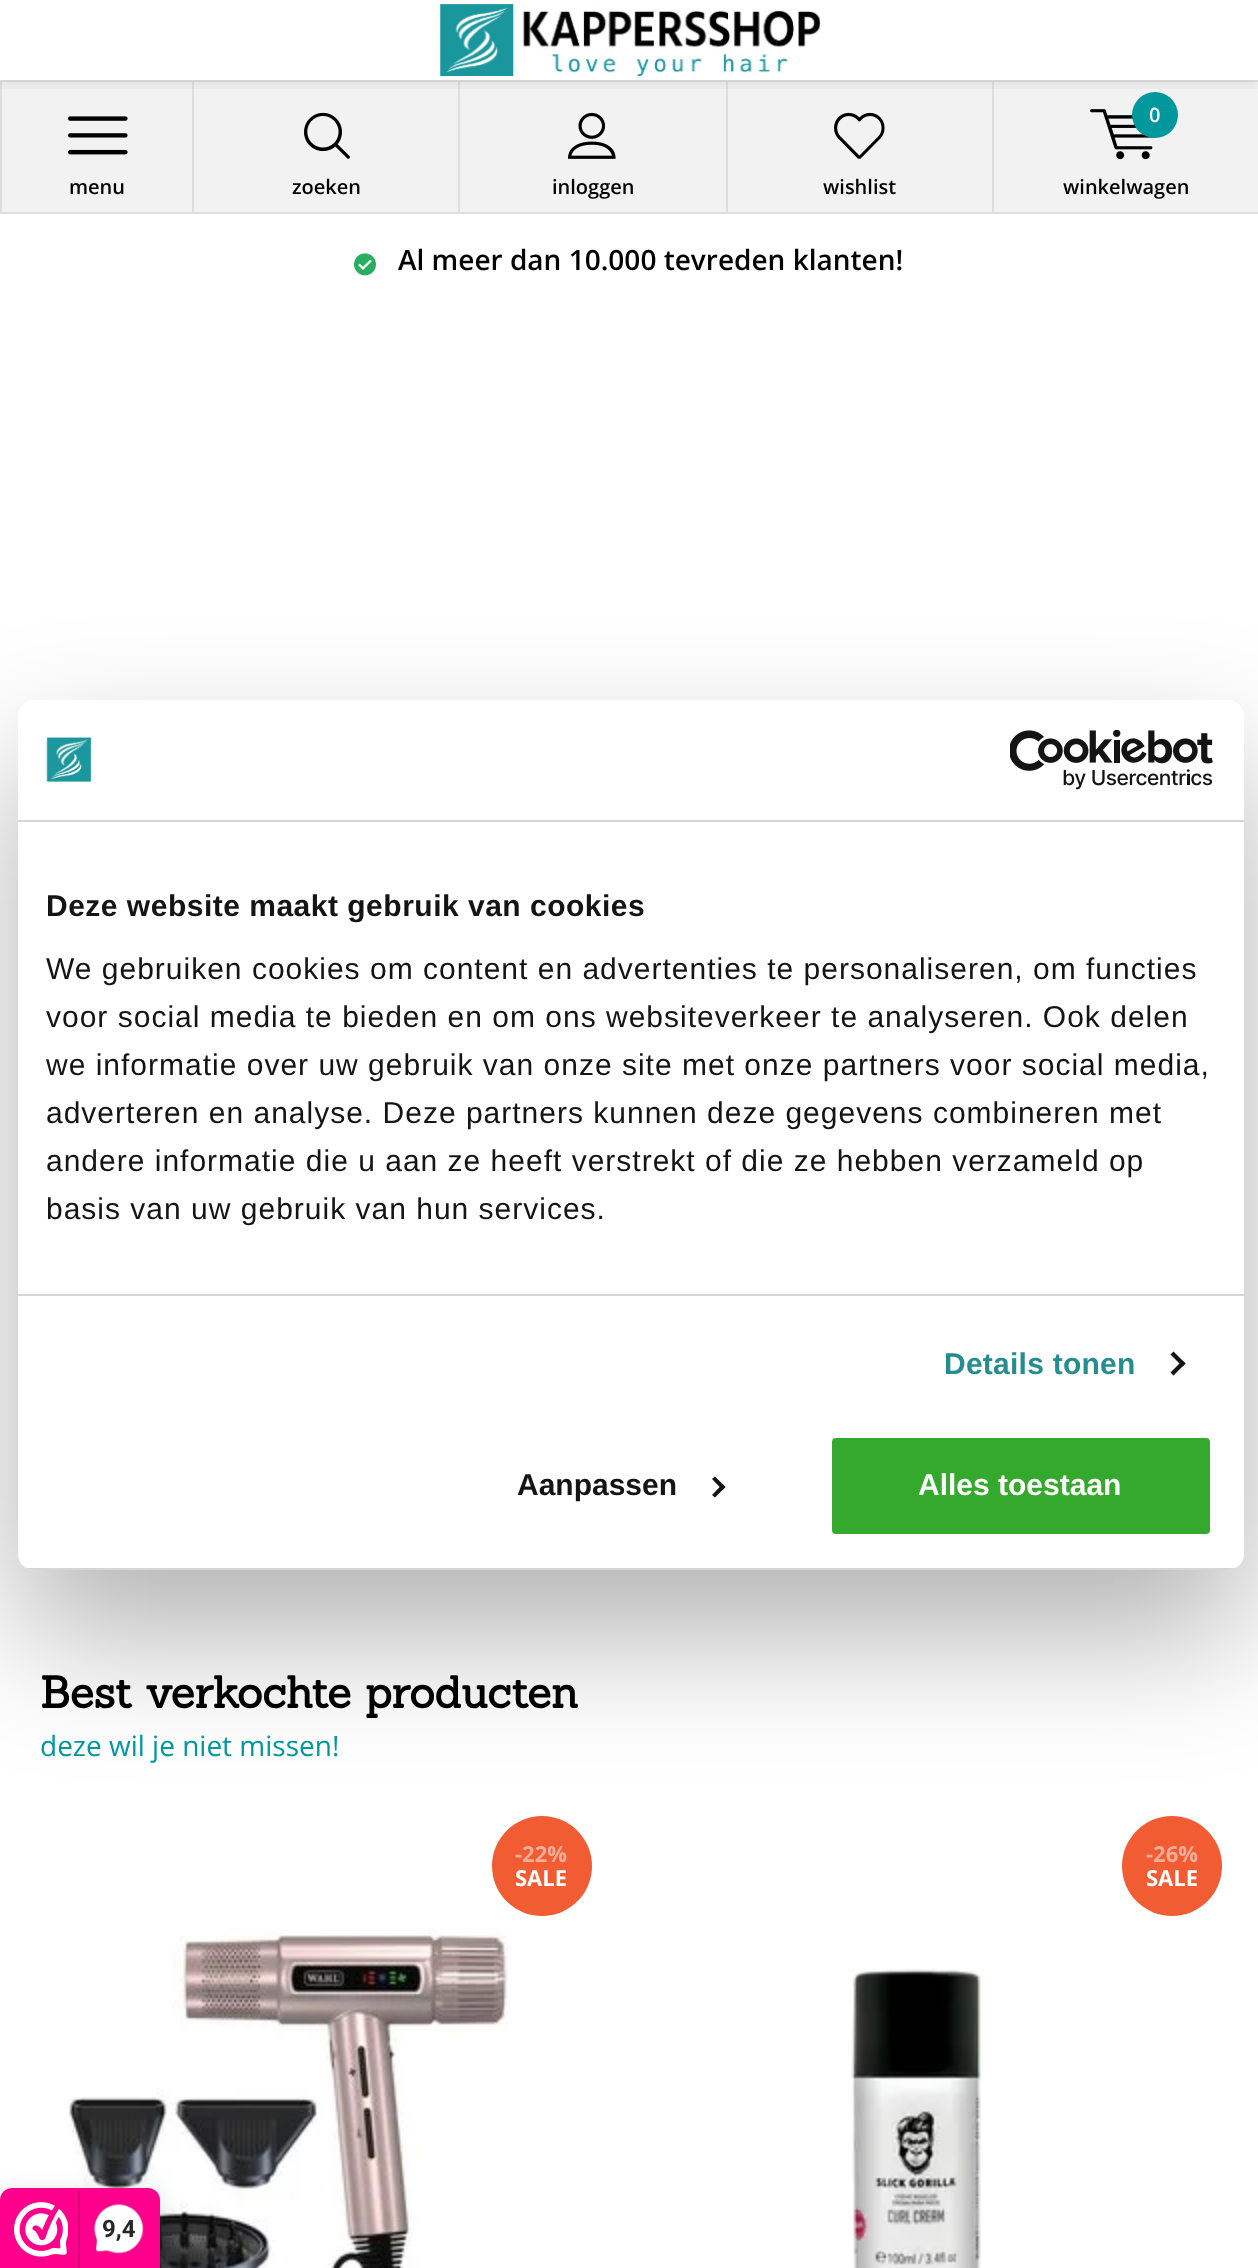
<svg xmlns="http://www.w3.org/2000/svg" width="1258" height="2268">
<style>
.a{font:600 20px Open Sans;fill:#000}
.b{font:600 20px Open Sans;fill:#fff}
.c{font:600 28px Open Sans;fill:#000}
.d{font:bold 44px Sanchez;fill:#000}
.e{font:28px Open Sans;fill:#00979d}
.f{font:bold 22px Open Sans;fill:#f9ae99}
.g{font:bold 22px Open Sans;fill:#fff}
.h{font:bold 30px Liberation Sans;letter-spacing:0.5px;fill:#141414}
.i{font:30px Liberation Sans;letter-spacing:1px;fill:#141414}
.j{font:bold 30px Liberation Sans;letter-spacing:0.25px;fill:#248d8f}
.k{font:bold 30px Liberation Sans;fill:#141414}
.l{font:bold 30px Liberation Sans;fill:#fff}
.m{font:bold 24px Roboto;fill:#272626}
</style>
<defs>
<clipPath id="clip1"><path d="M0 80h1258v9H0z"/></clipPath>
<clipPath id="clip2"><rect x="18" y="700" width="1226" height="870" rx="16"/></clipPath>
</defs>
<rect width="100%" height="100%" fill="#fff"/>
<path fill="#f2f2f2" d="M2 82h1256v130H2z"/>
<path fill="#e0e0e0" d="M0 80h1258v2H0z"/>
<path fill="#dedede" d="M0 212h1258v2H0z"/>
<path fill="#dedede" d="M0 82h2v132H0z"/>
<path fill="#dedede" d="M192 82h2v132H192z"/>
<path fill="#dedede" d="M458 82h2v132H458z"/>
<path fill="#dedede" d="M726 82h2v132H726z"/>
<path fill="#dedede" d="M992 82h2v132H992z"/>
<image href="6.png" x="1090" y="109" width="66" height="51"/>
<circle fill="#00979d" cx="1155" cy="115" r="23"/>
<g clip-path="url(#clip1)">
<path fill="#0000000d" filter="blur(4px)" d="M0 8h1258v80H0z"/>
</g>
<image href="1.png" x="440" y="4" width="380" height="73"/>
<image href="2.png" x="68" y="116" width="60" height="39"/>
<image href="3.png" x="304" y="112" width="46" height="47"/>
<image href="4.png" x="568" y="112" width="48" height="47"/>
<image href="5.png" x="834" y="112" width="51" height="47"/>
<image href="7.png" x="354" y="253" width="22" height="23"/>
<circle fill="#f25c33" cx="542" cy="1866" r="50"/>
<image href="8.png" x="67" y="1928" width="441" height="340"/>
<circle fill="#f25c33" cx="1172" cy="1866" r="50"/>
<image href="9.png" x="851" y="1968" width="132" height="300"/>
<rect fill="#0000004d" filter="blur(68px)" x="18" y="764" width="1226" height="870" rx="16"/>
<rect fill="#fff" x="18" y="700" width="1226" height="870" rx="16"/>
<path fill="#d6d6d6" d="M18 820h1226v2H18z"/>
<image href="10.png" x="46" y="737" width="45" height="45"/>
<image href="11.png" x="1010" y="730" width="203" height="60"/>
<path fill="#d6d6d6" d="M18 1294h1226v2H18z"/>
<path fill="#141414" d="M1173.5 1351.5l12 12l-3 3l-12-12z"/>
<path fill="#141414" d="M1182.5 1360.5l3 3l-12 12l-3-3z"/>
<g clip-path="url(#clip2)">
<path fill="#d6d6d6" d="M18 1568h1226v2H18z"/>
</g>
<path fill="#141414" d="M715 1476.5l10.5 10.5l-3 3l-10.5-11z"/>
<path fill="#141414" d="M722.5 1484l3 3l-10.5 10.5l-3-2.5z"/>
<rect fill="#35a92d" stroke="#fff" stroke-width="4" x="830" y="1436" width="382" height="100" rx="6"/>
<rect fill="#00000026" filter="blur(10px)" y="2192" width="160" height="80" rx="12"/>
<path fill="#fe008c" d="M12 2188h136c6.5 0 12 5.5 12 12v68h-160v-68c0-6.5 5.5-12 12-12z"/>
<image href="12.png" x="14" y="2202" width="54" height="55"/>
<path fill="#d80077" d="M78 2190h2v78H78z"/>
<image href="13.png" x="94" y="2204" width="50" height="50"/>
<text class="a" x="69" y="194">menu</text>
<text class="a" x="292" y="194">zoeken</text>
<text class="a" x="552" y="194">inloggen</text>
<text class="a" x="823" y="194">wishlist</text>
<text class="b" x="1149" y="122">0</text>
<text class="a" x="1063" y="194">winkelwagen</text>
<text class="c" x="398" y="270">Al meer dan 10.000 tevreden klanten!</text>
<text class="d" x="40" y="1708">Best verkochte producten</text>
<text class="e" x="40" y="1756">deze wil je niet missen!</text>
<text class="f" x="515" y="1862">-22%</text>
<text class="g" x="515" y="1886">SALE</text>
<text class="f" x="1146" y="1862">-26%</text>
<text class="g" x="1146" y="1886">SALE</text>
<text class="h" x="46" y="916">Deze website maakt gebruik van cookies</text>
<text class="i" x="46" y="979">We gebruiken cookies om content en advertenties te personaliseren, om functies</text>
<text class="i" x="46" y="1027">voor social media te bieden en om ons websiteverkeer te analyseren. Ook delen</text>
<text class="i" x="46" y="1075">we informatie over uw gebruik van onze site met onze partners voor social media,</text>
<text class="i" x="46" y="1123">adverteren en analyse. Deze partners kunnen deze gegevens combineren met</text>
<text class="i" x="46" y="1171">andere informatie die u aan ze heeft verstrekt of die ze hebben verzameld op</text>
<text class="i" x="46" y="1219">basis van uw gebruik van hun services.</text>
<text class="j" x="944" y="1374">Details tonen</text>
<text class="k" x="517" y="1495">Aanpassen</text>
<text class="l" x="918" y="1495">Alles toestaan</text>
<text class="m" x="102" y="2237">9,4</text>
</svg>
